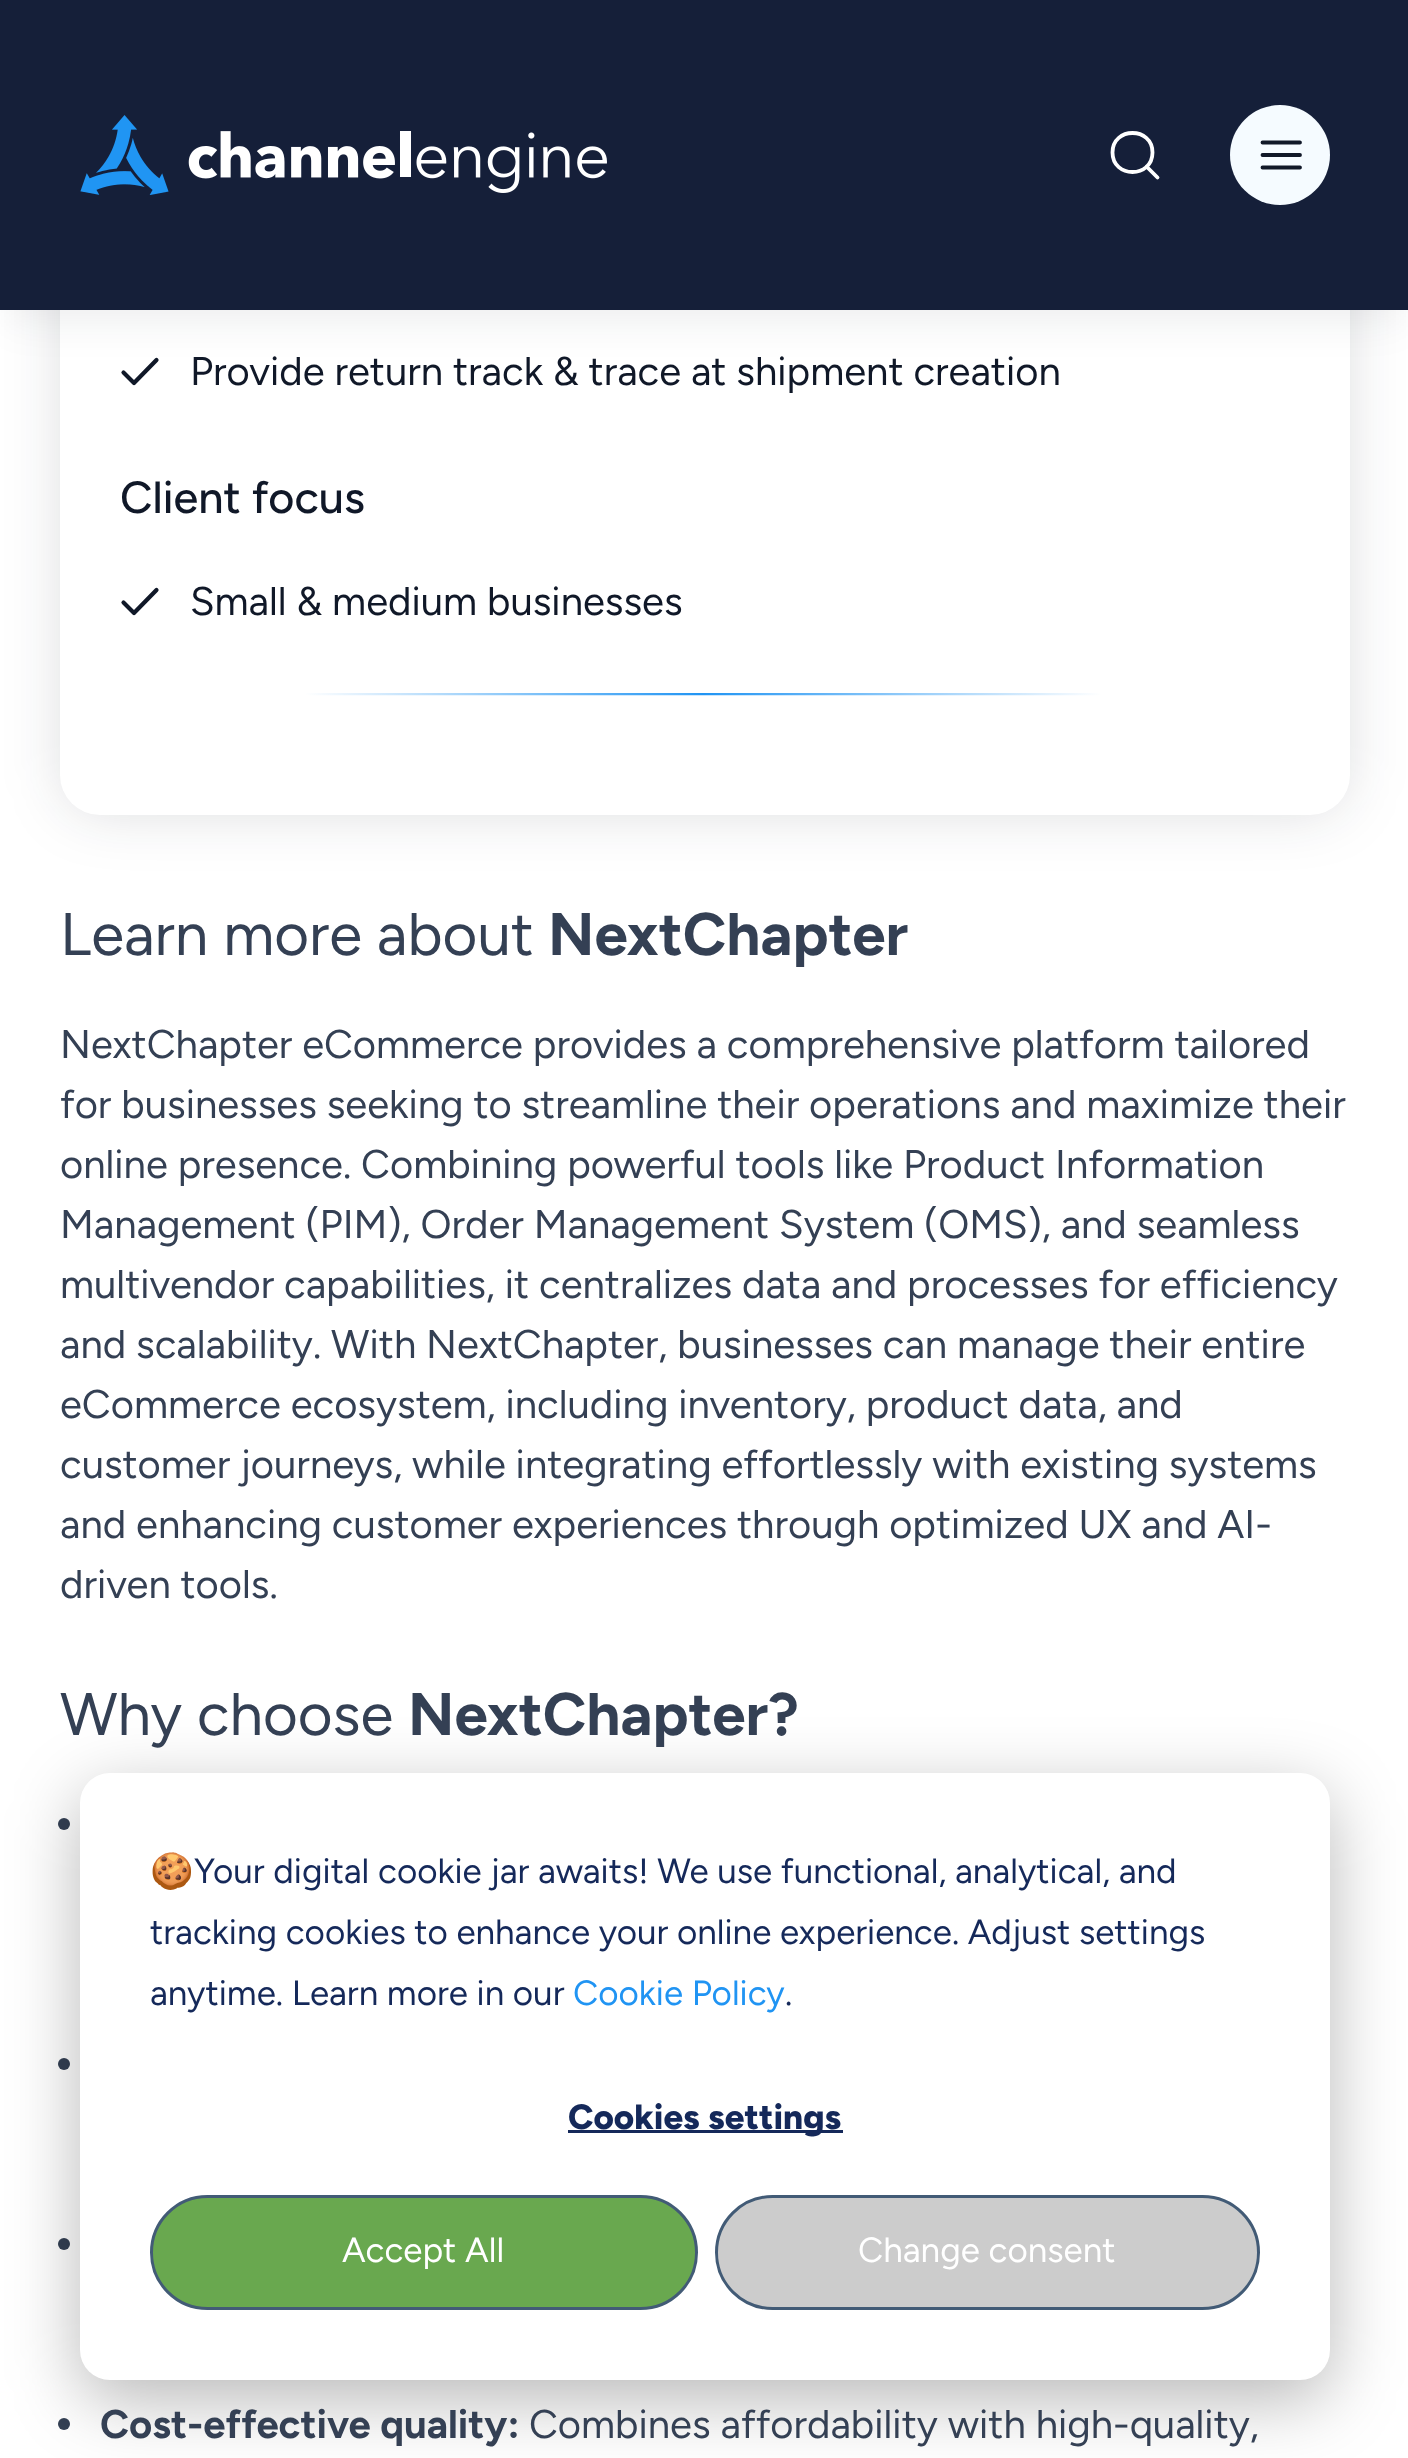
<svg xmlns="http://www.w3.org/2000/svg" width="1408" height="2458">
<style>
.a{font:40px Figtree;fill:#101828}
.b{font:500 45px Figtree;fill:#101828}
.c{font:60px Figtree;fill:#344054}
.d{font:bold 60px Figtree;fill:#344054}
.e{font:40px Figtree;fill:#344054}
.f{font:bold 40px Figtree;fill:#344054}
.g{font:bold 35px Noto Color Emoji;fill:#15295a}
.h{font:35px Figtree;fill:#15295a}
.i{font:35px Figtree;fill:#2094f3}
.j{font:800 35px Figtree;fill:#15295a}
.k{font:35px Figtree;fill:#fff}
</style>
<defs>
<clipPath id="clip1"><path d="M120 693h1170v3H120z"/></clipPath>
<linearGradient id="g1" gradientUnits="userSpaceOnUse" x1="1101" y1="695" x2="305" y2="695"><stop offset="0" stop-color="#fff"/><stop offset="0.5" stop-color="#2094f3"/><stop offset="1" stop-color="#fff"/></linearGradient>
</defs>
<rect width="100%" height="100%" fill="#fff"/>
<rect fill="#10182829" filter="blur(30px)" x="65" y="-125" width="1280" height="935" rx="35"/>
<rect fill="#fff" x="60" y="-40" width="1290" height="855" rx="40"/>
<path fill="none" stroke="#101828" stroke-width="4.2" stroke-linecap="round" stroke-linejoin="round" d="M156.5 360l-22.5 23l-10.5-10.5"/>
<path fill="#10182814" filter="blur(20px)" d="M10 30h1390v290H10z"/>
<path fill="#151f39" d="M0 0h1408v310H0z"/>
<image href="1.png" x="80" y="115" width="527" height="80"/>
<path fill="none" stroke="#fff" stroke-width="3.8" stroke-linecap="round" stroke-linejoin="round" d="M1157.5 177.5l-11-11m6-14c0 26-40 26-40 0c0-26 40-26 40 0z"/>
<circle fill="#f5fbff" cx="1280" cy="155" r="50"/>
<path fill="none" stroke="#101828" stroke-width="3.8" stroke-linecap="round" stroke-linejoin="round" d="M1262.5 155h37.5m-37.5-12.5h37.5m-37.5 25h37.5"/>
<path fill="none" stroke="#101828" stroke-width="4.2" stroke-linecap="round" stroke-linejoin="round" d="M156.5 590l-22.5 23l-10.5-10.5"/>
<g clip-path="url(#clip1)">
<path fill="none" stroke="url(#g1)" stroke-width="2.5" d="M305 694h800"/>
</g>
<circle fill="#344054" cx="64" cy="1824" r="6"/>
<circle fill="#344054" cx="64" cy="2064" r="6"/>
<circle fill="#344054" cx="64" cy="2244" r="6"/>
<circle fill="#344054" cx="64" cy="2424" r="6"/>
<rect fill="#00000047" filter="blur(35px)" x="80" y="1793" width="1250" height="607" rx="30"/>
<rect fill="#fff" x="80" y="1773" width="1250" height="607" rx="30"/>
<path fill="#15295a" d="M568 2130h275v3H568z"/>
<rect fill="#69a84f" stroke="#425b76" stroke-width="3" x="151.5" y="2196.5" width="545" height="112" rx="56"/>
<rect fill="#ccc" stroke="#425b76" stroke-width="3" x="716.5" y="2196.5" width="542" height="112" rx="56"/>
<text class="a" x="190" y="385">Provide return track &amp; trace at shipment creation</text>
<text class="b" x="120" y="513">Client focus</text>
<text class="a" x="190" y="615">Small &amp; medium businesses</text>
<text class="c" x="60" y="955">Learn more about</text>
<text class="d" x="548" y="955">NextChapter</text>
<text class="e" x="60" y="1058">NextChapter eCommerce provides a comprehensive platform tailored</text>
<text class="e" x="60" y="1118">for businesses seeking to streamline their operations and maximize their</text>
<text class="e" x="60" y="1178">online presence. Combining powerful tools like Product Information</text>
<text class="e" x="60" y="1238">Management (PIM), Order Management System (OMS), and seamless</text>
<text class="e" x="60" y="1298">multivendor capabilities, it centralizes data and processes for efficiency</text>
<text class="e" x="60" y="1358">and scalability. With NextChapter, businesses can manage their entire</text>
<text class="e" x="60" y="1418">eCommerce ecosystem, including inventory, product data, and</text>
<text class="e" x="60" y="1478">customer journeys, while integrating effortlessly with existing systems</text>
<text class="e" x="60" y="1538">and enhancing customer experiences through optimized UX and AI-</text>
<text class="e" x="60" y="1598">driven tools.</text>
<text class="c" x="60" y="1735">Why choose</text>
<text class="d" x="408" y="1735">NextChapter?</text>
<text class="f" x="100" y="2438">Cost-effective quality:</text>
<text class="e" x="529" y="2438">Combines affordability with high-quality,</text>
<text class="g" x="150" y="1883">🍪</text>
<text class="h" x="194" y="1883">Your digital cookie jar awaits! We use functional, analytical, and</text>
<text class="h" x="150" y="1944">tracking cookies to enhance your online experience. Adjust settings</text>
<text class="h" x="150" y="2005">anytime. Learn more in our</text>
<text class="i" x="573" y="2005">Cookie Policy</text>
<text class="h" x="785" y="2005">.</text>
<text class="j" x="568" y="2129">Cookies settings</text>
<text class="k" x="342" y="2262">Accept All</text>
<text class="k" x="858" y="2262">Change consent</text>
</svg>
